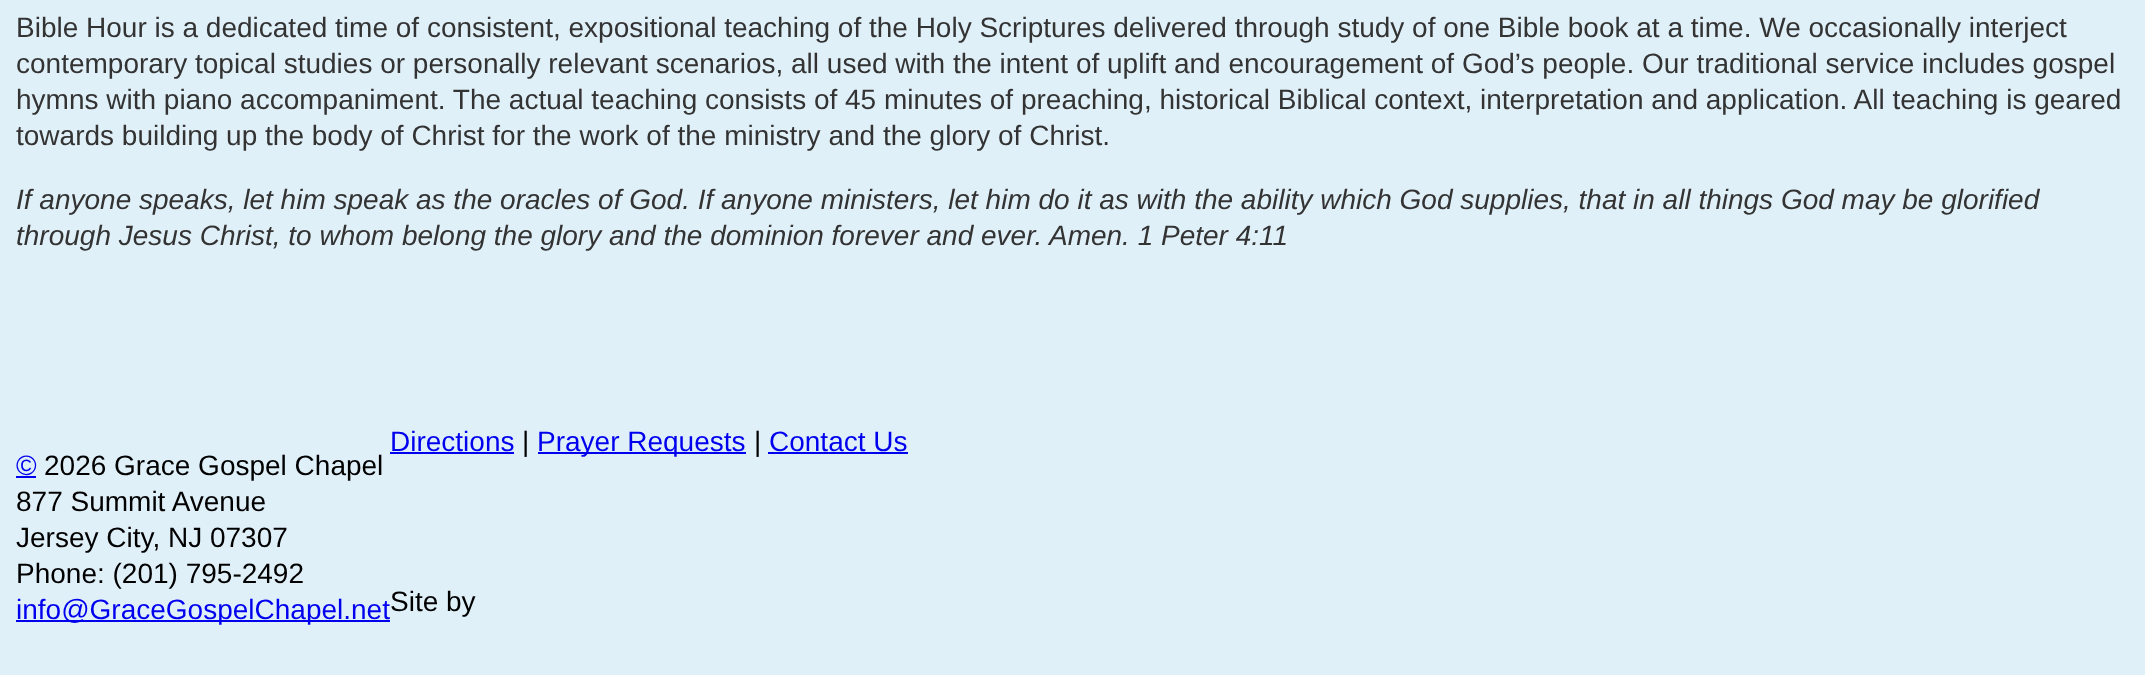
<svg xmlns="http://www.w3.org/2000/svg" width="2145" height="675">
<style>
.a{font:28px Liberation Sans;fill:#333}
.b{font:italic 28px Liberation Sans;fill:#333}
.c{font:28px Liberation Sans;fill:#00e}
.d{font:28px Liberation Sans;fill:#000}
</style>
<rect width="100%" height="100%" fill="#e0f0f8"/>
<path fill="#00e" d="M16 476h20v2H16z"/>
<path fill="#00e" d="M16 620h374v2H16z"/>
<path fill="#00e" d="M390 452h124v2H390z"/>
<path fill="#00e" d="M538 452h208v2H538z"/>
<path fill="#00e" d="M768 452h140v2H768z"/>
<text class="a" x="16" y="37">Bible Hour is a dedicated time of consistent, expositional teaching of the Holy Scriptures delivered through study of one Bible book at a time. We occasionally interject</text>
<text class="a" x="16" y="73">contemporary topical studies or personally relevant scenarios, all used with the intent of uplift and encouragement of God’s people. Our traditional service includes gospel</text>
<text class="a" x="16" y="109">hymns with piano accompaniment. The actual teaching consists of 45 minutes of preaching, historical Biblical context, interpretation and application. All teaching is geared</text>
<text class="a" x="16" y="145">towards building up the body of Christ for the work of the ministry and the glory of Christ.</text>
<text class="b" x="16" y="209">If anyone speaks, let him speak as the oracles of God. If anyone ministers, let him do it as with the ability which God supplies, that in all things God may be glorified</text>
<text class="b" x="16" y="245">through Jesus Christ, to whom belong the glory and the dominion forever and ever. Amen. 1 Peter 4:11</text>
<text class="c" x="16" y="475">©</text>
<text class="d" x="44" y="475">2026 Grace Gospel Chapel</text>
<text class="d" x="16" y="511">877 Summit Avenue</text>
<text class="d" x="16" y="547">Jersey City, NJ 07307</text>
<text class="d" x="16" y="583">Phone: (201) 795-2492</text>
<text class="c" x="16" y="619">info@GraceGospelChapel.net</text>
<text class="c" x="390" y="451">Directions</text>
<text class="d" x="522" y="451">|</text>
<text class="c" x="537" y="451">Prayer Requests</text>
<text class="d" x="754" y="451">|</text>
<text class="c" x="769" y="451">Contact Us</text>
<text class="d" x="390" y="611">Site by</text>
</svg>
